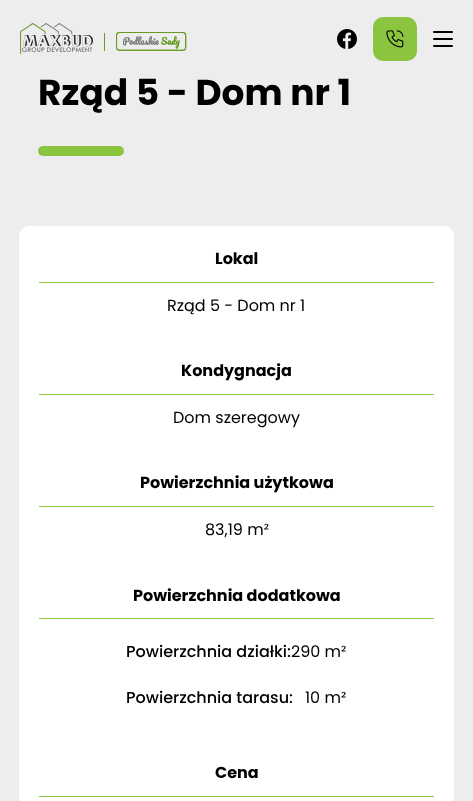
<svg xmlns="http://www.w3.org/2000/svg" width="473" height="801">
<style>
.a{font:bold 36px Poppins;fill:#000}
.b{font:bold 16px Poppins;fill:#000}
.c{font:16px Poppins;fill:#000}
.d{font:500 16px Poppins;fill:#000}
</style>
<rect width="100%" height="100%" fill="#ededed"/>
<image href="1.png" x="20" y="23" width="167" height="32"/>
<image href="2.png" x="337" y="29" width="20" height="20"/>
<rect fill="#8bc53f" x="373" y="17" width="44" height="44" rx="10"/>
<image href="3.png" x="386" y="30" width="18" height="18"/>
<rect fill="#000" x="433" y="31" width="20" height="2" rx="1"/>
<rect fill="#000" x="433" y="38" width="20" height="2" rx="1"/>
<rect fill="#000" x="433" y="45" width="20" height="2" rx="1"/>
<rect fill="#8bc53f" x="38" y="146" width="86" height="10" rx="5"/>
<rect fill="#fff" x="19" y="226" width="435" height="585" rx="10"/>
<path fill="#8bc53f" d="M39 282h395v1H39z"/>
<path fill="#8bc53f" d="M39 394h395v1H39z"/>
<path fill="#8bc53f" d="M39 506h395v1H39z"/>
<path fill="#8bc53f" d="M39 618h395v1H39z"/>
<path fill="#8bc53f" d="M39 796h395v1H39z"/>
<text class="a" x="38" y="105">Rząd 5 - Dom nr 1</text>
<text class="b" x="215" y="264">Lokal</text>
<text class="c" x="167" y="311">Rząd 5 - Dom nr 1</text>
<text class="b" x="181" y="376">Kondygnacja</text>
<text class="c" x="173" y="423">Dom szeregowy</text>
<text class="b" x="140" y="488">Powierzchnia użytkowa</text>
<text class="c" x="205" y="535">83,19 m²</text>
<text class="b" x="133" y="601">Powierzchnia dodatkowa</text>
<text class="d" x="126" y="657">Powierzchnia działki:</text>
<text class="c" x="291" y="657">290 m²</text>
<text class="d" x="126" y="703">Powierzchnia tarasu:</text>
<text class="c" x="305" y="703">10 m²</text>
<text class="b" x="215" y="778">Cena</text>
</svg>
